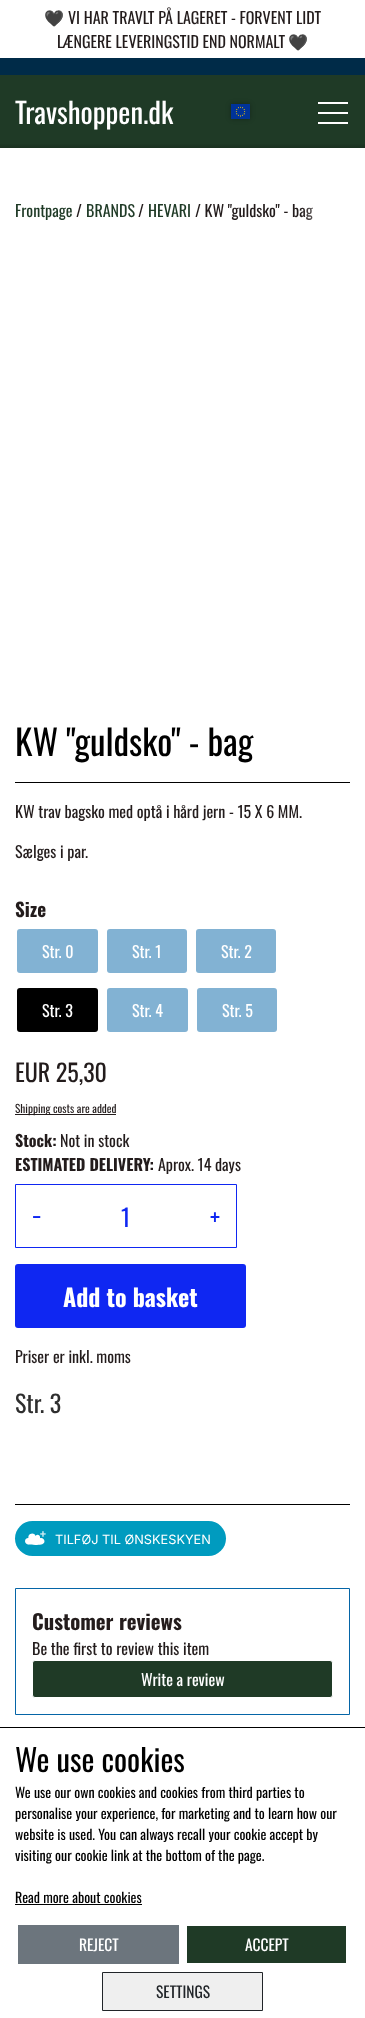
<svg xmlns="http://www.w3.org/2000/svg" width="365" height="2018">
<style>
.a{font:16px Noto Color Emoji;fill:#231c1c}
.b{font:16px Oswald;fill:#231c1c}
.c{font:28.75px Oswald;fill:#fff}
.d{font:16px Oswald;fill:#1f3a26}
.e{font:35.25px Oswald;fill:#000}
.f{font:bold 19px Oswald;fill:#231c1c}
.g{font:16px Oswald;fill:#fff}
.h{font:24px Oswald;fill:#231c1c}
.i{font:11.25px Oswald;fill:#231c1c}
.j{font:bold 16px Oswald;fill:#231c1c}
.k{font:24px Oswald;fill:#0f27f2}
.l{font:bold 24px Oswald;fill:#fff}
.m{font:24px Oswald;fill:#2e2e2e}
.n{font:12.75px Inter;fill:#fff}
.o{font:bold 20.75px Oswald;fill:#231c1c}
.p{font:30.75px Oswald;fill:#000}
.q{font:14px Oswald;fill:#000}
.r{font:15.5px Oswald;fill:#fff}
.s{font:15.5px Oswald;fill:#212529}
</style>
<defs>
<linearGradient id="g1" gradientUnits="userSpaceOnUse" x1="183" y1="148" x2="183" y2="143"><stop offset="0" stop-color="#1a3120"/><stop offset="1" stop-color="#1f3a26"/></linearGradient>
<linearGradient id="g2" gradientUnits="userSpaceOnUse" x1="300" y1="228" x2="350" y2="228"><stop offset="0" stop-color="#fff" stop-opacity="0"/><stop offset="1" stop-color="#fff"/></linearGradient>
</defs>
<rect width="100%" height="100%" fill="#1f3a26"/>
<path fill="#fff" d="M0 0h365v58H0z"/>
<path fill="#002b48" d="M0 58h365v17H0z"/>
<path fill="#0000004d" filter="blur(2.5px)" d="M231 104h19v15H231z"/>
<image href="1.png" x="231" y="104" width="19" height="15"/>
<path fill="#fff" d="M318 102h30v2H318z"/>
<path fill="#fff" d="M318 112h30v2H318z"/>
<path fill="#fff" d="M318 122h30v2H318z"/>
<path fill="url(#g1)" d="M0 144h365v4H0z"/>
<path fill="#fff" d="M0 148h365v1579H0z"/>
<path fill="#000" d="M15 782h335v1H15z"/>
<rect fill="#82b2d3" x="17" y="929" width="81" height="44" rx="3"/>
<rect fill="#82b2d3" x="107" y="929" width="80" height="44" rx="3"/>
<rect fill="#82b2d3" x="196" y="929" width="80" height="44" rx="3"/>
<rect fill="#000" x="17" y="988" width="81" height="44" rx="3"/>
<rect fill="#82b2d3" x="107" y="988" width="81" height="44" rx="3"/>
<rect fill="#82b2d3" x="197" y="988" width="80" height="44" rx="3"/>
<path fill="#231c1c" d="M15 1114h101v1H15z"/>
<path fill="none" stroke="#0f27f2" d="M15.5 1184.5h221v63H15.5z"/>
<rect fill="#0f27f2" x="15" y="1264" width="231" height="64" rx="3"/>
<path fill="#000" d="M15 1504h335v1H15z"/>
<rect fill="#009bbf" x="15" y="1521" width="211" height="35" rx="17.5"/>
<image href="2.png" x="25" y="1531" width="21" height="14"/>
<path fill="none" stroke="#0565a7" d="M15.5 1588.5h334v126H15.5z"/>
<rect fill="#1f3a26" stroke="#fff" x="32.5" y="1660.5" width="300" height="37" rx="2.5"/>
<path fill="#fff" d="M0 1728h365v290H0z"/>
<path fill="#000" d="M0 1727h365v1H0z"/>
<path fill="#000" d="M15 1904h127v1H15z"/>
<path fill="#6c757d" d="M18 1925h161v39H18z"/>
<path fill="#1f3a26" d="M187 1926h159v37H187z"/>
<path fill="#efefef" stroke="#212529" d="M102.5 1972.5h160v38H102.5z"/>
<text class="a" x="44" y="24">🖤</text>
<text class="b" x="68" y="24">VI HAR TRAVLT PÅ LAGERET - FORVENT LIDT</text>
<text class="b" x="57" y="48">LÆNGERE LEVERINGSTID END NORMALT</text>
<text class="a" x="288" y="48">🖤</text>
<text class="c" x="15" y="124">Travshoppen.dk</text>
<text class="d" x="15" y="217">Frontpage</text>
<text class="b" x="76" y="217">/</text>
<text class="d" x="86" y="217">BRANDS</text>
<text class="b" x="138" y="217">/</text>
<text class="d" x="148" y="217">HEVARI</text>
<text class="b" x="195" y="217">/ KW "guldsko" - bag</text>
<path fill="url(#g2)" d="M301 207h12v13H301z"/>
<text class="e" x="15" y="756">KW "guldsko" - bag</text>
<text class="b" x="15" y="818">KW trav bagsko med optå i hård jern - 15 X 6 MM.</text>
<text class="b" x="15" y="858">Sælges i par.</text>
<text class="f" x="15" y="917">Size</text>
<text class="g" x="42" y="958">Str. 0</text>
<text class="g" x="132" y="958">Str. 1</text>
<text class="g" x="221" y="958">Str. 2</text>
<text class="g" x="42" y="1017">Str. 3</text>
<text class="g" x="132" y="1017">Str. 4</text>
<text class="g" x="222" y="1017">Str. 5</text>
<text class="h" x="15" y="1082">EUR 25,30</text>
<text class="i" x="15" y="1113">Shipping costs are added</text>
<text class="j" x="15" y="1147">Stock:</text>
<text class="b" x="60" y="1147">Not in stock</text>
<text class="j" x="15" y="1171">ESTIMATED DELIVERY:</text>
<text class="b" x="158" y="1171">Aprox. 14 days</text>
<text class="k" x="32" y="1227">−</text>
<text class="k" x="121" y="1227">1</text>
<text class="k" x="210" y="1227">+</text>
<text class="l" x="63" y="1307">Add to basket</text>
<text class="b" x="15" y="1363">Priser er inkl. moms</text>
<text class="m" x="15" y="1413">Str. 3</text>
<text class="n" x="55" y="1544">TILFØJ TIL ØNSKESKYEN</text>
<text class="o" x="32" y="1630">Customer reviews</text>
<text class="b" x="32" y="1655">Be the first to review this item</text>
<text class="g" x="141" y="1686">Write a review</text>
<text class="p" x="15" y="1772">We use cookies</text>
<text class="q" x="15" y="1798">We use our own cookies and cookies from third parties to</text>
<text class="q" x="15" y="1819">personalise your experience, for marketing and to learn how our</text>
<text class="q" x="15" y="1840">website is used. You can always recall your cookie accept by</text>
<text class="q" x="15" y="1861">visiting our cookie link at the bottom of the page.</text>
<text class="q" x="15" y="1903">Read more about cookies</text>
<text class="r" x="79" y="1951">REJECT</text>
<text class="r" x="245" y="1951">ACCEPT</text>
<text class="s" x="156" y="1998">SETTINGS</text>
</svg>
